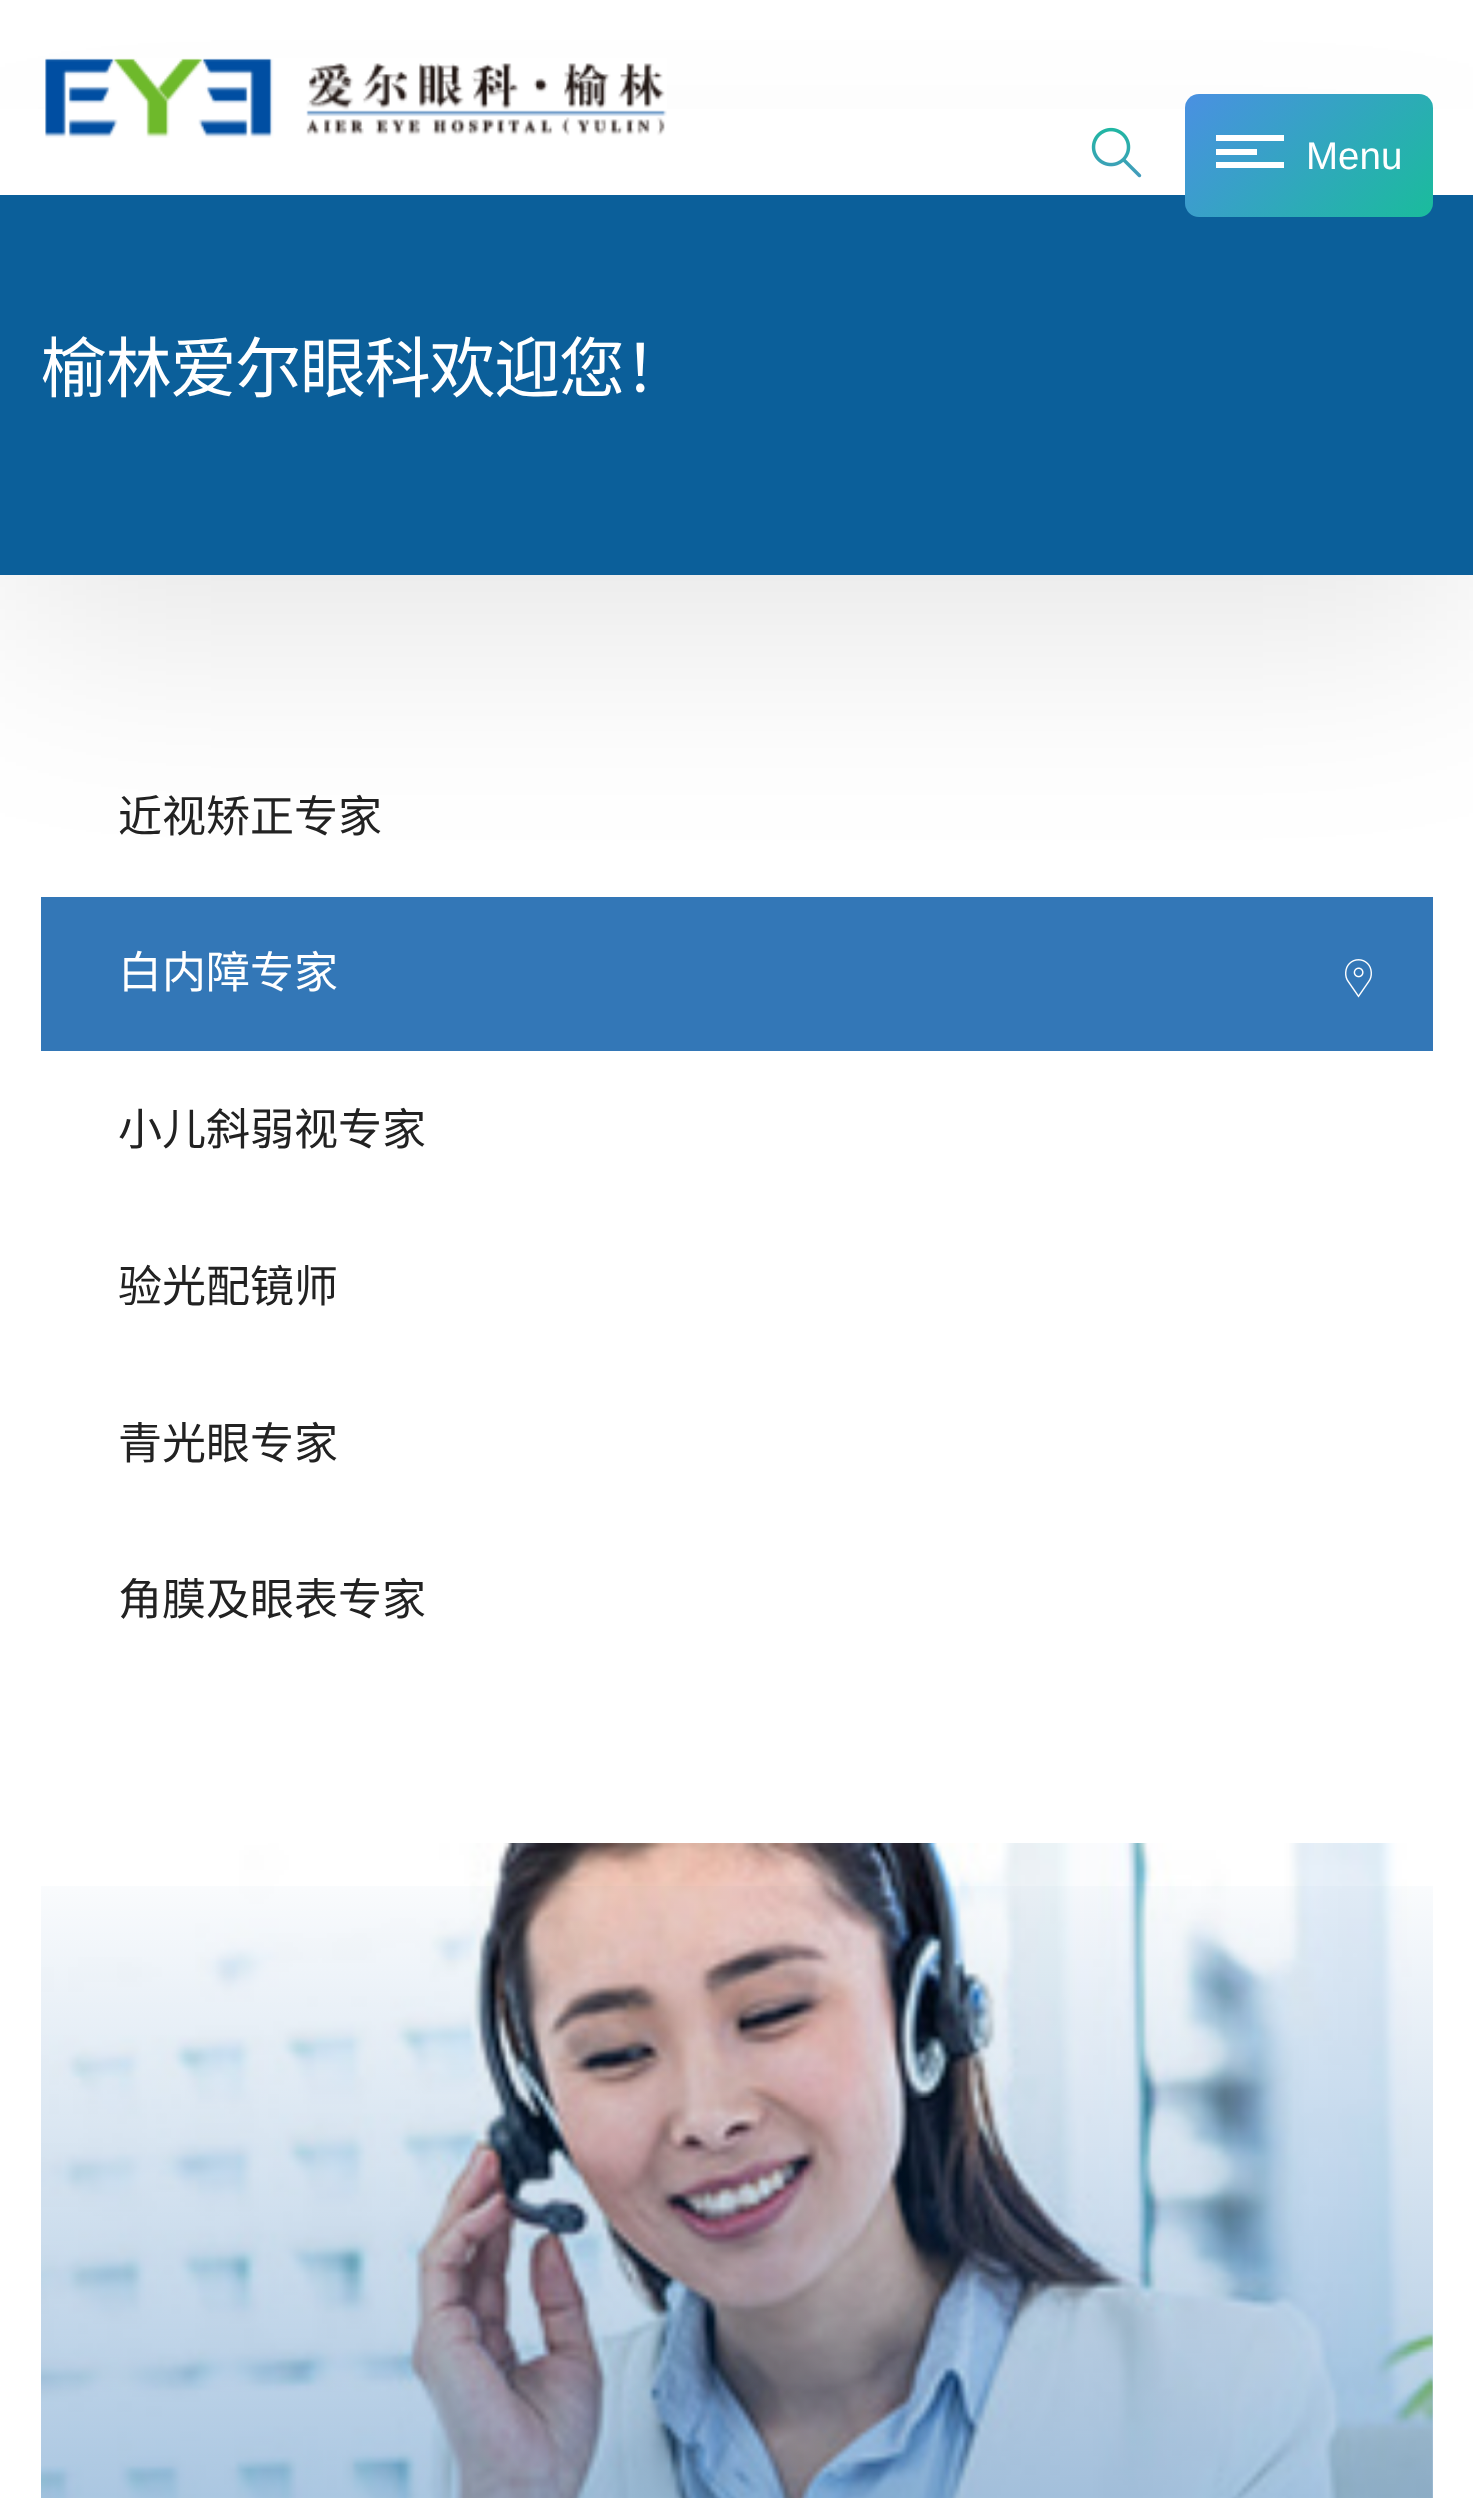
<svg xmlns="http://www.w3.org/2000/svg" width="1473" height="2498">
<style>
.a{font:38.5px Liberation Sans;fill:#fff}
.b{font:66px Noto Sans CJK SC;letter-spacing:-1.25px;fill:#fff}
.c{font:44px Noto Sans CJK SC;fill:#222}
.d{font:44px Noto Sans CJK SC;fill:#fff}
</style>
<defs>
<linearGradient id="g1" gradientUnits="userSpaceOnUse" x1="1402" y1="248" x2="1216" y2="63"><stop offset="0" stop-color="#1abc9c"/><stop offset="1" stop-color="#4a90e2"/></linearGradient>
<linearGradient id="g2" gradientUnits="userSpaceOnUse" x1="737" y1="1843" x2="737" y2="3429"><stop offset="0" stop-color="#0055a5" stop-opacity="0"/><stop offset="1" stop-color="#0055a5" stop-opacity="0.8"/></linearGradient>
</defs>
<rect width="100%" height="100%" fill="#fff"/>
<path fill="#0000001a" filter="blur(110px)" d="M0 250h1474v380H0z"/>
<path fill="#fff" d="M0 109h1473v86H0z"/>
<image href="1.png" x="45" y="58" width="622" height="80"/>
<image href="2.png" x="1091" y="127" width="51" height="51"/>
<path fill="#0b5f9a" d="M0 195h1473v380H0z"/>
<rect fill="url(#g1)" x="1185" y="94" width="248" height="123" rx="14"/>
<path fill="#fff" d="M1216 135h68v6H1216z"/>
<path fill="#fff" d="M1216 149h41v6H1216z"/>
<path fill="#fff" d="M1216 162h68v6H1216z"/>
<path fill="#0055a5cc" d="M41 897h1392v154H41z"/>
<image href="3.png" x="1345" y="959" width="27" height="39"/>
<image href="4.png" x="41" y="1843" width="1392" height="655"/>
<path fill="url(#g2)" d="M41 1886h1392v612H41z"/>
<text class="a" x="1306" y="169">Menu</text>
<text class="b" x="41" y="392">榆林爱尔眼科欢迎您！</text>
<text class="c" x="118" y="832">近视矫正专家</text>
<text class="d" x="118" y="988">白内障专家</text>
<text class="c" x="118" y="1145">小儿斜弱视专家</text>
<text class="c" x="118" y="1302">验光配镜师</text>
<text class="c" x="118" y="1459">青光眼专家</text>
<text class="c" x="118" y="1615">角膜及眼表专家</text>
</svg>
